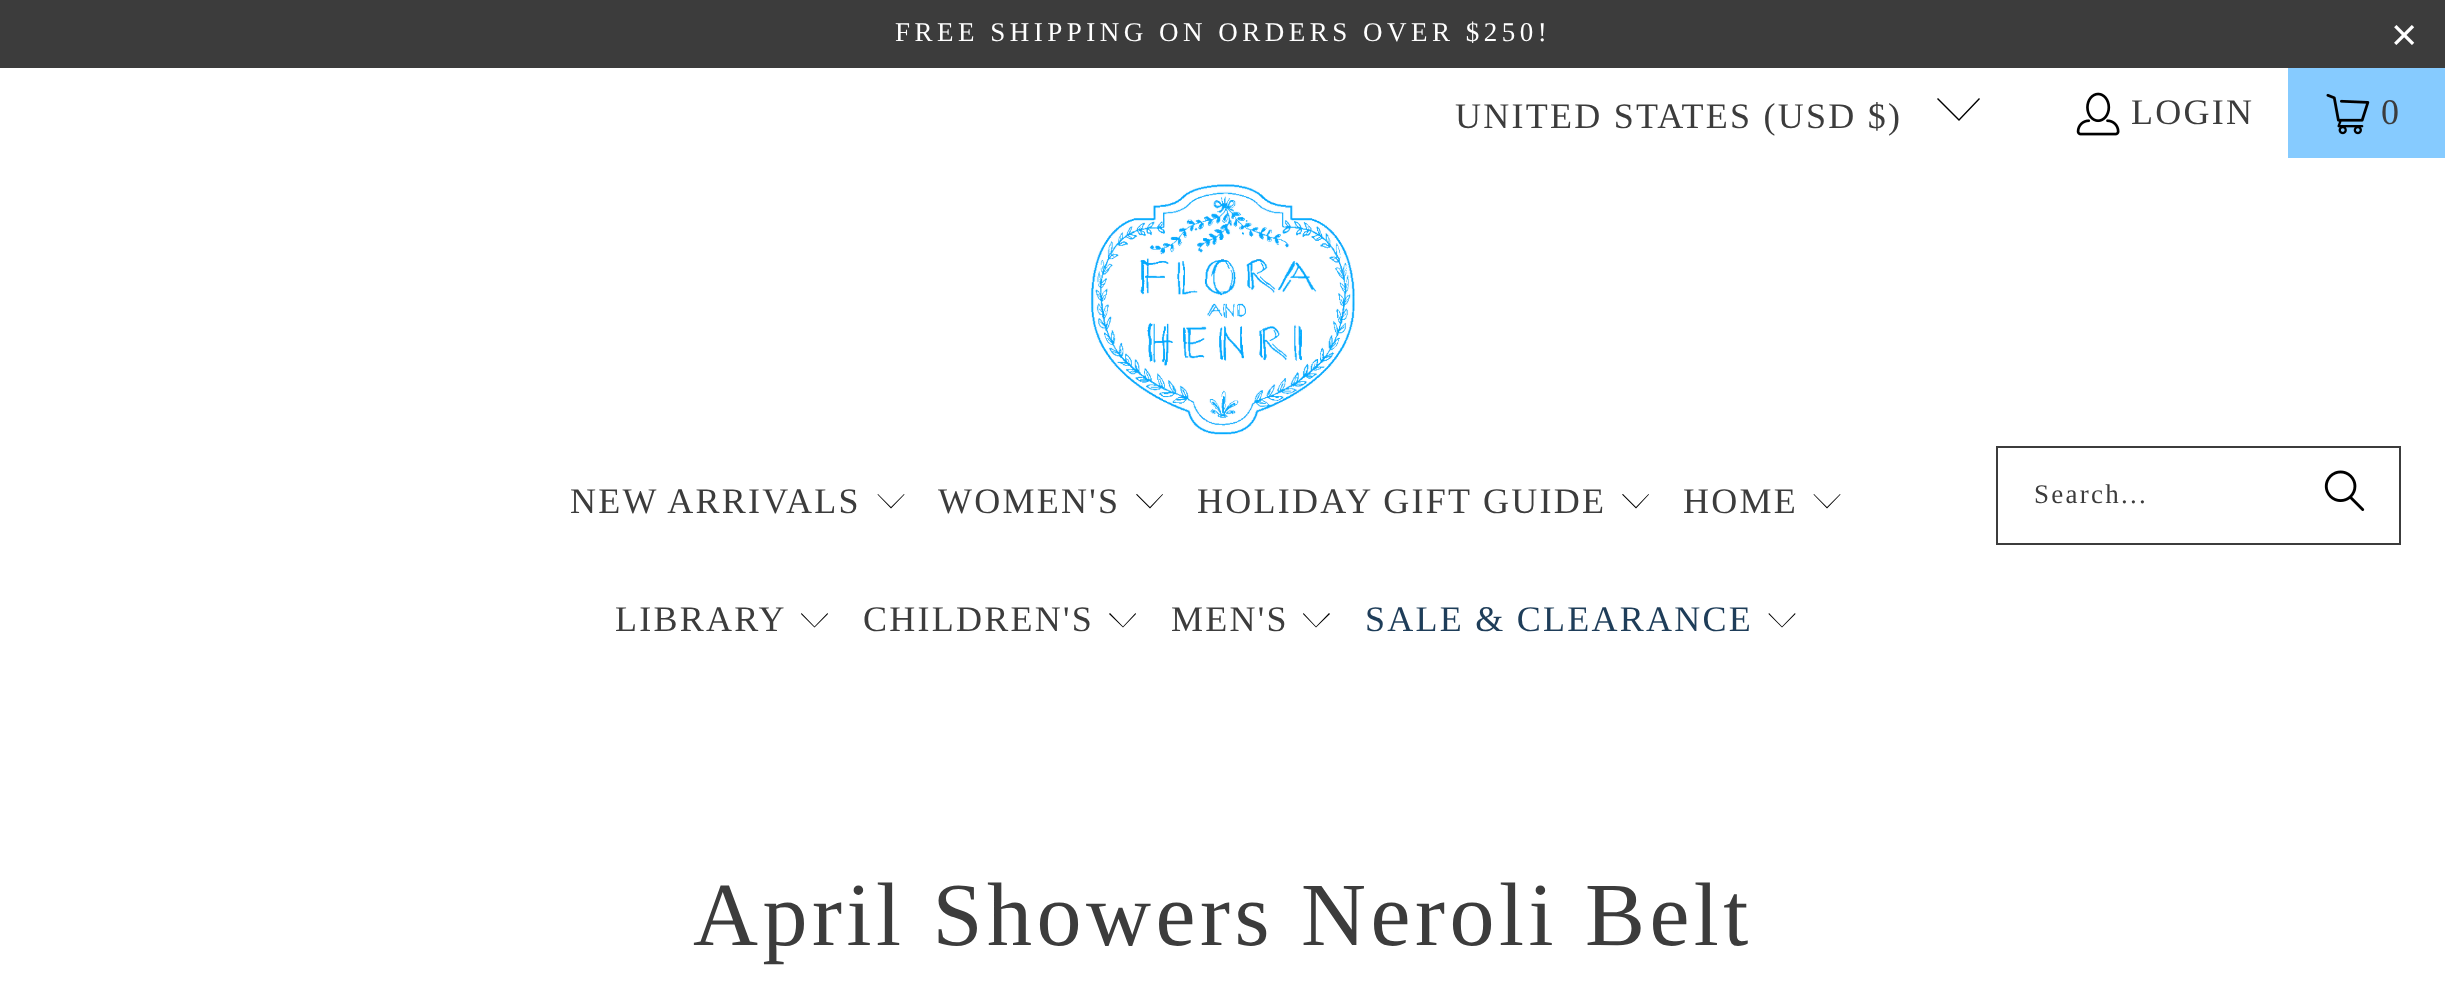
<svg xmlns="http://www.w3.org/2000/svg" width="2445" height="1000">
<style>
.a{font:27px Liberation Serif;letter-spacing:4.5px;fill:#fff}
.b{font:45px Liberation Sans;letter-spacing:4.5px;fill:#fff}
.c{font:36px Liberation Serif;letter-spacing:2.25px;fill:#3c3c3c}
.d{font:36px Liberation Serif;letter-spacing:2.25px;fill:#1e3d59}
.e{font:27px Liberation Serif;letter-spacing:2.25px;fill:#3c3c3c}
.f{font:90px Liberation Serif;letter-spacing:4.5px;fill:#3c3c3c}
</style>
<rect width="100%" height="100%" fill="#fff"/>
<path fill="#3c3c3c" d="M0 0h2445v68H0z"/>
<path fill="#000" d="M1959 121l-22-22l1-1l21 21l20-21l1 1z"/>
<image href="1.png" x="2076" y="92" width="44" height="44"/>
<path fill="#86cbff" d="M2288 68h157v90H2288z"/>
<image href="2.png" x="2326" y="93" width="44" height="42"/>
<image href="3.png" x="1090" y="184" width="265" height="251"/>
<path fill="#000" d="M891 508.5l-13.5-14l.5-.5l13 13l13-13l.5 .5z"/>
<path fill="#000" d="M1150 508.5l-14-14l1-.5l13 13l12.5-13l.5 .5z"/>
<path fill="#000" d="M1636 508.5l-14-14l1-.5l13 13l12.5-13l.5 .5z"/>
<path fill="#000" d="M1827 508.5l-13.5-14l.5-.5l13 13l13-13l.5 .5z"/>
<path fill="#000" d="M814.5 627.5l-13.5-13.5l.5-1l13 13.5l13-13.5l.5 1z"/>
<path fill="#000" d="M1123 627.5l-14-13.5l1-1l13 13.5l12.5-13.5l.5 1z"/>
<path fill="#000" d="M1316 627.5l-13-13.5l.5-1l12.5 13.5l13-13.5l1 1z"/>
<path fill="#000" d="M1782 627.5l-13.5-13.5l.5-1l13 13.5l13-13.5l.5 1z"/>
<path fill="none" stroke="#3c3c3c" stroke-width="2" d="M1997 447h403v97H1997z"/>
<image href="4.png" x="2324" y="470" width="41" height="41"/>
<text class="a" x="895" y="41">FREE SHIPPING ON ORDERS OVER $250!</text>
<text class="b" x="2391" y="50">×</text>
<text class="c" x="1455" y="128">UNITED STATES (USD $)</text>
<text class="c" x="2131" y="124">LOGIN</text>
<text class="c" x="2381" y="124">0</text>
<text class="c" x="570" y="513">NEW ARRIVALS</text>
<text class="c" x="938" y="513">WOMEN'S</text>
<text class="c" x="1197" y="513">HOLIDAY GIFT GUIDE</text>
<text class="c" x="1683" y="513">HOME</text>
<text class="c" x="615" y="631">LIBRARY</text>
<text class="c" x="863" y="631">CHILDREN'S</text>
<text class="c" x="1171" y="631">MEN'S</text>
<text class="d" x="1365" y="631">SALE &amp; CLEARANCE</text>
<text class="e" x="2034" y="503">Search...</text>
<text class="f" x="693" y="945">April Showers Neroli Belt</text>
</svg>
